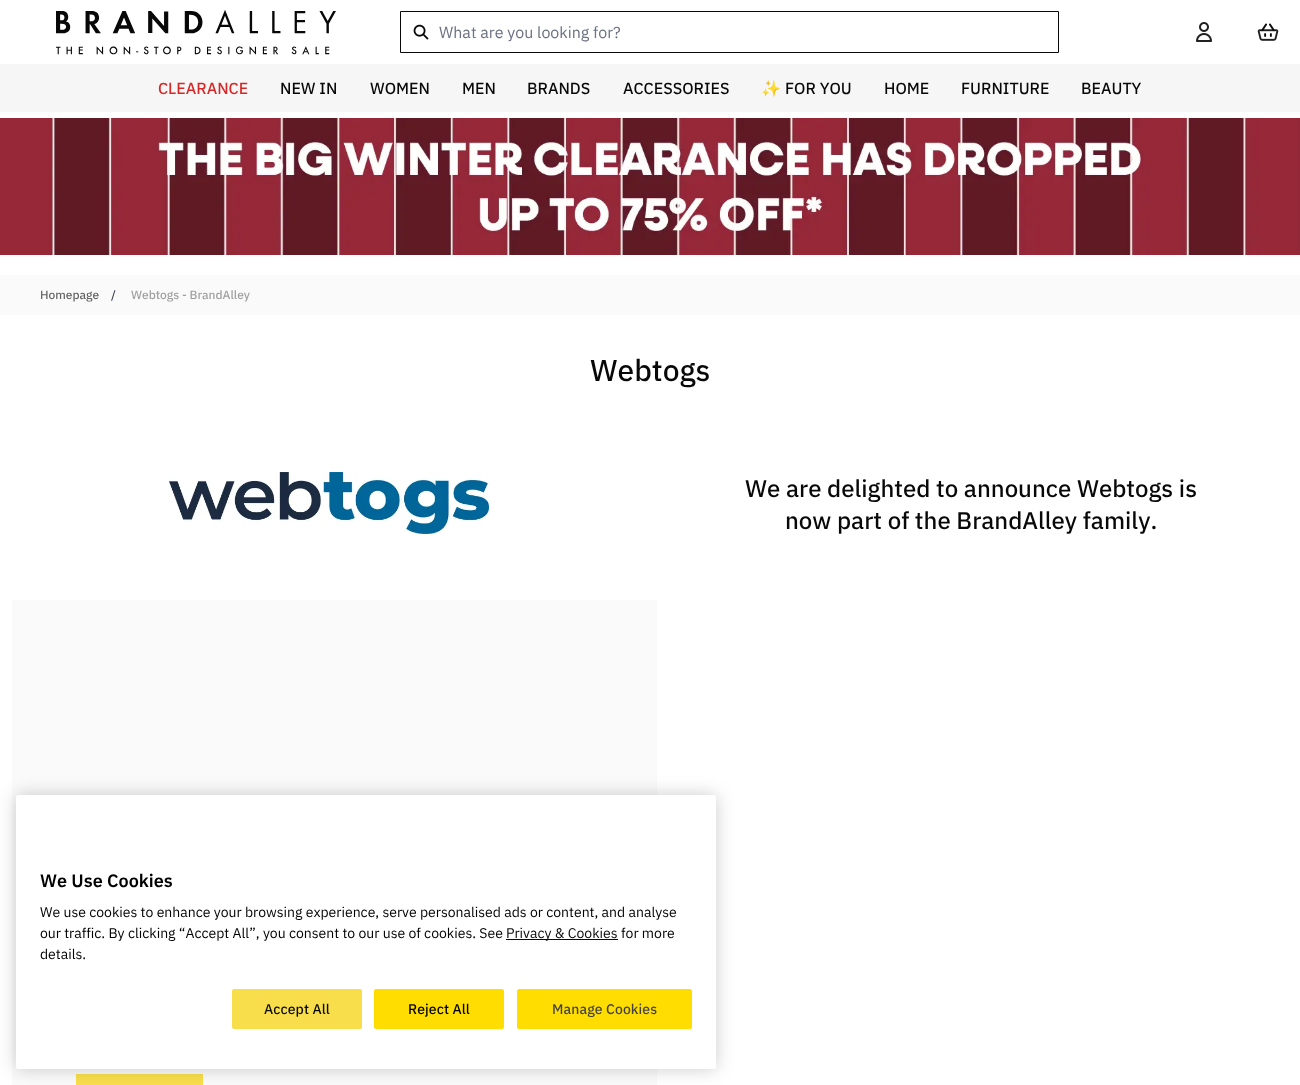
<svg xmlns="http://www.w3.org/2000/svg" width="1300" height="1085">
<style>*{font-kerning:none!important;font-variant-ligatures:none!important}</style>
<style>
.a{font:16px Anuphan;fill:#6b7280}
.b{font:500 16px Anuphan;fill:#d62727}
.c{font:500 16px Anuphan;fill:#080808}
.d{font:16px Noto Color Emoji;fill:#080808}
.e{font:500 12px Anuphan;fill:#616161}
.f{font:500 12px Anuphan;fill:#374151}
.g{font:500 12px Anuphan;fill:#9e9e9e}
.h{font:500 30px Anuphan;fill:#080808}
.i{font:500 24px Anuphan;fill:#080808}
.j{font:600 18px Anuphan;fill:#000}
.k{font:14px Anuphan;fill:#000}
.l{font:14px Anuphan;fill:#080808}
.m{font:500 14px Anuphan;letter-spacing:0.1px;fill:#080808}
.n{font:500 14px Anuphan;letter-spacing:0.1px;fill:#000}
.o{font:500 14px Anuphan;letter-spacing:0.1px;fill:#424242}
</style>
<rect width="100%" height="100%" fill="#fff"/>
<image href="1.png" x="56" y="9" width="280" height="46"/>
<path fill="none" stroke="#080808" d="M400.5 11.5h658v41H400.5z"/>
<image href="2.png" x="413" y="24" width="16" height="16"/>
<image href="3.png" x="1196" y="22" width="16" height="20"/>
<image href="4.png" x="1257" y="23" width="22" height="18"/>
<path fill="#f6f6f6" d="M0 64h1300v48H0z"/>
<image href="5.png" x="0" y="118" width="1300" height="137"/>
<path fill="#fafafa" d="M0 275h1300v40H0z"/>
<image href="6.png" x="169" y="472" width="320" height="62"/>
<image href="7.png" x="12" y="600" width="645" height="485"/>
<path fill="#f9de4b" d="M76 1074h127v11H76z"/>
<rect fill="#00000033" filter="blur(9px)" x="16" y="795" width="700" height="274" rx="2.5"/>
<rect fill="#fff" x="16" y="795" width="700" height="274" rx="2.5"/>
<path fill="#080808" d="M506 939h112v1H506z"/>
<rect fill="#f9de4b" stroke="#f9de4b" x="232.5" y="989.5" width="129" height="39" rx="1.5"/>
<rect fill="#fd0" stroke="#fd0" x="374.5" y="989.5" width="129" height="39" rx="1.5"/>
<rect fill="#fd0" stroke="#fd0" x="517.5" y="989.5" width="174" height="39" rx="1.5"/>
<text class="a" x="439" y="38">What are you looking for?</text>
<text class="b" x="158" y="94">CLEARANCE</text>
<text class="c" x="280" y="94">NEW IN</text>
<text class="c" x="370" y="94">WOMEN</text>
<text class="c" x="462" y="94">MEN</text>
<text class="c" x="527" y="94">BRANDS</text>
<text class="c" x="623" y="94">ACCESSORIES</text>
<text class="d" x="761" y="94">✨</text>
<text class="c" x="785" y="94">FOR YOU</text>
<text class="c" x="884" y="94">HOME</text>
<text class="c" x="961" y="94">FURNITURE</text>
<text class="c" x="1081" y="94">BEAUTY</text>
<text class="e" x="40" y="299">Homepage</text>
<text class="f" x="111" y="299">/</text>
<text class="g" x="131" y="299">Webtogs - BrandAlley</text>
<text class="h" x="590" y="381">Webtogs</text>
<text class="i" x="745" y="497">We are delighted to announce Webtogs is</text>
<text class="i" x="785" y="529">now part of the BrandAlley family.</text>
<text class="j" x="40" y="887">We Use Cookies</text>
<text class="k" x="40" y="917">We use cookies to enhance your browsing experience, serve personalised ads or content, and analyse</text>
<text class="k" x="40" y="938">our traffic. By clicking “Accept All”, you consent to our use of cookies. See</text>
<text class="l" x="506" y="938">Privacy &amp; Cookies</text>
<text class="k" x="621" y="938">for more</text>
<text class="k" x="40" y="959">details.</text>
<text class="m" x="264" y="1014">Accept All</text>
<text class="n" x="408" y="1014">Reject All</text>
<text class="o" x="552" y="1014">Manage Cookies</text>
</svg>
